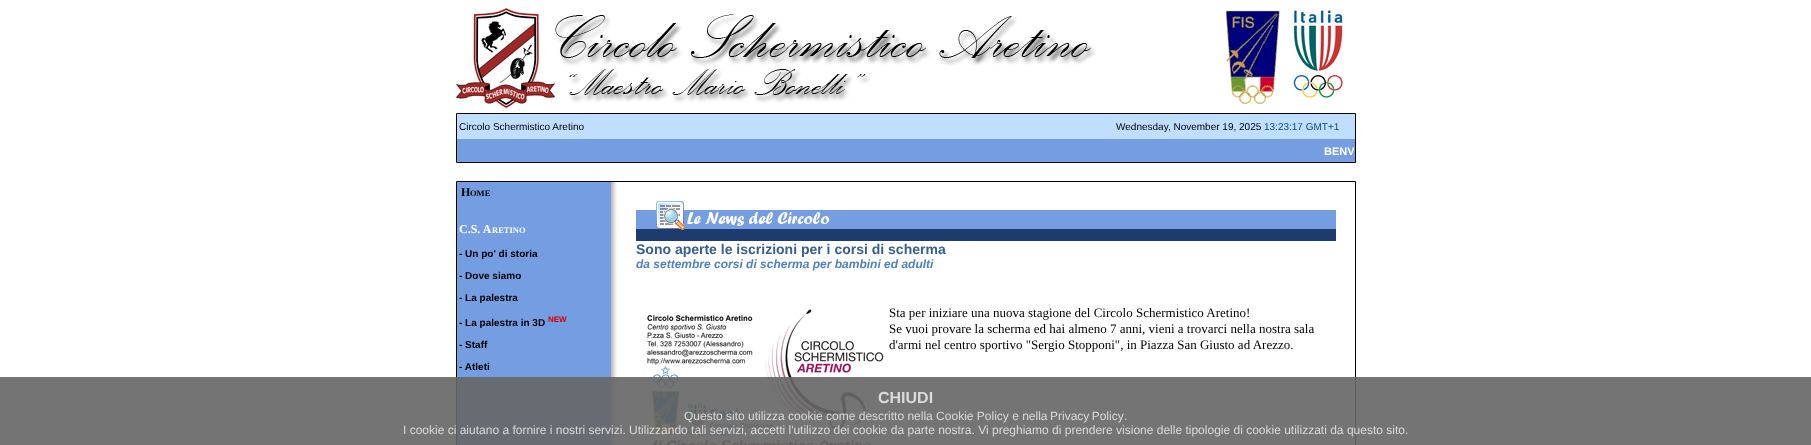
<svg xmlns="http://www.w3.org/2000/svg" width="1811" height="445">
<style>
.a{font:10px Liberation Sans;fill:#000}
.b{font:10px Liberation Sans;fill:#034a74}
.c{font:bold 11px Liberation Sans;fill:#fff}
.d{font:bold 16px Liberation Sans;fill:#dadada}
.e{font:12px Liberation Sans;fill:#dadada}
.f{font:bold 12px Liberation Serif;fill:#000}
.g{font:bold 8.5px Liberation Serif;fill:#000}
.h{font:bold 12px Liberation Serif;fill:#fff}
.i{font:bold 8.5px Liberation Serif;fill:#fff}
.j{font:bold 10px Liberation Sans;fill:#000}
.k{font:bold 8px Liberation Sans;fill:#d40001}
.l{font:bold 14px Liberation Sans;fill:#365f91}
.m{font:italic bold 12px Liberation Sans;fill:#4f81bd}
.n{font:13px Liberation Serif;fill:#000}
</style>
<rect width="100%" height="100%" fill="#fff"/>
<image href="1.png" x="456" y="8" width="640" height="100"/>
<image href="2.png" x="1225" y="8" width="118" height="96"/>
<path fill="none" stroke="#000" d="M456.5 113.5h899v49H456.5z"/>
<path fill="#c0deff" d="M457 114h898v25H457z"/>
<path fill="#759de2" d="M457 139h898v23H457z"/>
<path fill="none" stroke="#000" d="M456.5 181.5h899v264H456.5z"/>
<image href="3.png" x="457" y="182" width="160" height="263"/>
<image href="5.png" x="647" y="309" width="237" height="136"/>
<path fill="#666666b3" d="M0 377h1811v68H0z"/>
<path fill="#666666b3" d="M0 377h1811v68H0z"/>
<image href="4.png" x="636" y="201" width="700" height="40"/>
<text class="a" x="459" y="130">Circolo Schermistico Aretino</text>
<text class="a" x="1116" y="130">Wednesday, November 19, 2025</text>
<text class="b" x="1264" y="130">13:23:17 GMT+1</text>
<text class="c" x="1324" y="155">BENV</text>
<text class="d" x="878" y="403">CHIUDI</text>
<text class="e" x="684" y="420">Questo sito utilizza cookie come descritto nella Cookie Policy e nella</text>
<text class="e" x="1050" y="420" word-spacing="-1">Privacy Policy</text>
<text class="e" x="1124" y="420">.</text>
<text class="e" x="403" y="434">I cookie ci aiutano a fornire i nostri servizi. Utilizzando tali servizi, accetti l'utilizzo dei cookie da parte nostra. Vi preghiamo di prendere visione delle tipologie di cookie utilizzati da questo sito.</text>
<text class="f" x="461" y="196">H</text>
<text class="g" x="470" y="196">OME</text>
<text class="h" x="459" y="233">C.S. A</text>
<text class="i" x="492" y="233">RETINO</text>
<text class="j" x="459" y="257">- Un po' di storia</text>
<text class="j" x="459" y="279">- Dove siamo</text>
<text class="j" x="459" y="301">- La palestra</text>
<text class="j" x="459" y="326">- La palestra in 3D</text>
<text class="k" x="548" y="322">NEW</text>
<text class="j" x="459" y="348">- Staff</text>
<text class="j" x="459" y="370">- Atleti</text>
<text class="l" x="636" y="254">Sono aperte le iscrizioni per i corsi di scherma</text>
<text class="m" x="636" y="268">da settembre corsi di scherma per bambini ed adulti</text>
<text class="n" x="889" y="317">Sta per iniziare una nuova stagione del Circolo Schermistico Aretino!</text>
<text class="n" x="889" y="333">Se vuoi provare la scherma ed hai almeno 7 anni, vieni a trovarci nella nostra sala</text>
<text class="n" x="889" y="349">d'armi nel centro sportivo "Sergio Stopponi", in Piazza San Giusto ad Arezzo.</text>
</svg>
